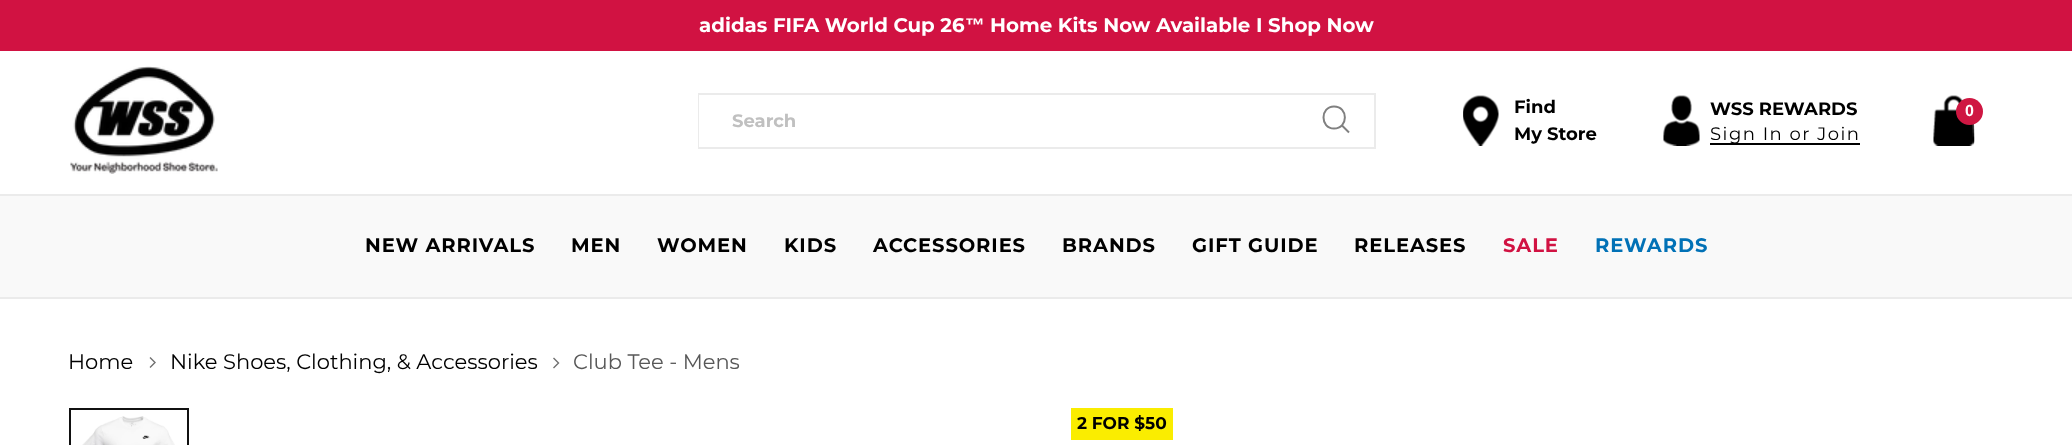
<svg xmlns="http://www.w3.org/2000/svg" width="2072" height="445">
<style>
.a{font:bold 19.8px Montserrat;fill:#fff}
.b{font:bold 19.8px Liberation Sans;fill:#fff}
.c{font:bold 18px Montserrat;fill:#c0c0c0}
.d{font:bold 18px Montserrat;fill:#000}
.e{font:18px Montserrat;letter-spacing:1.5px;fill:#000}
.f{font:bold 16px Liberation Sans;fill:#fff}
.g{font:bold 19.5px Montserrat;letter-spacing:0.9px;fill:#000}
.h{font:bold 19.5px Montserrat;letter-spacing:0.9px;fill:#d11242}
.i{font:bold 19.5px Montserrat;letter-spacing:0.9px;fill:#0171b6}
.j{font:21px Montserrat;fill:#000}
.k{font:21px Montserrat;fill:#585858}
.l{font:bold 17px Montserrat;fill:#000}
</style>
<rect width="100%" height="100%" fill="#fff"/>
<path fill="#d11242" d="M0 0h2072v51H0z"/>
<image href="1.png" x="70" y="66" width="148" height="108"/>
<path fill="none" stroke="#ebebeb" stroke-width="2" d="M699 94h676v54H699z"/>
<path fill="#fff" d="M699 95h1v52H699z"/>
<path fill="none" stroke="#808080" stroke-width="2" stroke-linecap="round" d="M1334 128.5c14.5 0 14.5-22 0-22c-14 0-14 22 0 22z"/>
<path fill="none" stroke="#808080" stroke-width="2" d="M1342 125.5l7 7"/>
<image href="2.png" x="1463" y="95" width="36" height="51"/>
<image href="3.png" x="1663" y="95" width="37" height="51"/>
<path fill="#000" d="M1710 143h150v2H1710z"/>
<image href="4.png" x="1933" y="95" width="42" height="51"/>
<circle fill="#cf1742" cx="1969.5" cy="111.5" r="13.5"/>
<path fill="#f9f9f9" d="M0 196h2072v101H0z"/>
<path fill="#ebebeb" d="M0 194h2072v2H0z"/>
<path fill="#ebebeb" d="M0 297h2072v2H0z"/>
<path fill="none" stroke="#707070" stroke-width="1.4" d="M150 367.5l5-5l-5-5"/>
<path fill="none" stroke="#707070" stroke-width="1.4" d="M553.5 368l5-5l-5-5"/>
<image href="5.png" x="82" y="416" width="93" height="29"/>
<path fill="none" stroke="#111" stroke-width="2" d="M70 409h118v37H70z"/>
<path fill="#faed00" d="M1071 408h102v32H1071z"/>
<text class="a" x="699" y="32">adidas FIFA World Cup 26</text>
<text class="b" x="965" y="32">™</text>
<text class="a" x="990" y="32">Home Kits Now Available I Shop Now</text>
<text class="c" x="732" y="127">Search</text>
<text class="d" x="1514" y="113">Find</text>
<text class="d" x="1514" y="140">My Store</text>
<text class="d" x="1710" y="115">WSS REWARDS</text>
<text class="e" x="1710" y="140">Sign In or Join</text>
<text class="f" x="1965" y="116">0</text>
<text class="g" x="365" y="252">NEW ARRIVALS</text>
<text class="g" x="571" y="252">MEN</text>
<text class="g" x="657" y="252">WOMEN</text>
<text class="g" x="784" y="252">KIDS</text>
<text class="g" x="873" y="252">ACCESSORIES</text>
<text class="g" x="1062" y="252">BRANDS</text>
<text class="g" x="1192" y="252">GIFT GUIDE</text>
<text class="g" x="1354" y="252">RELEASES</text>
<text class="h" x="1503" y="252">SALE</text>
<text class="i" x="1595" y="252">REWARDS</text>
<text class="j" x="68" y="369">Home</text>
<text class="j" x="170" y="369">Nike Shoes, Clothing, &amp; Accessories</text>
<text class="k" x="573" y="369">Club Tee - Mens</text>
<text class="l" x="1077" y="429">2 FOR $50</text>
</svg>
